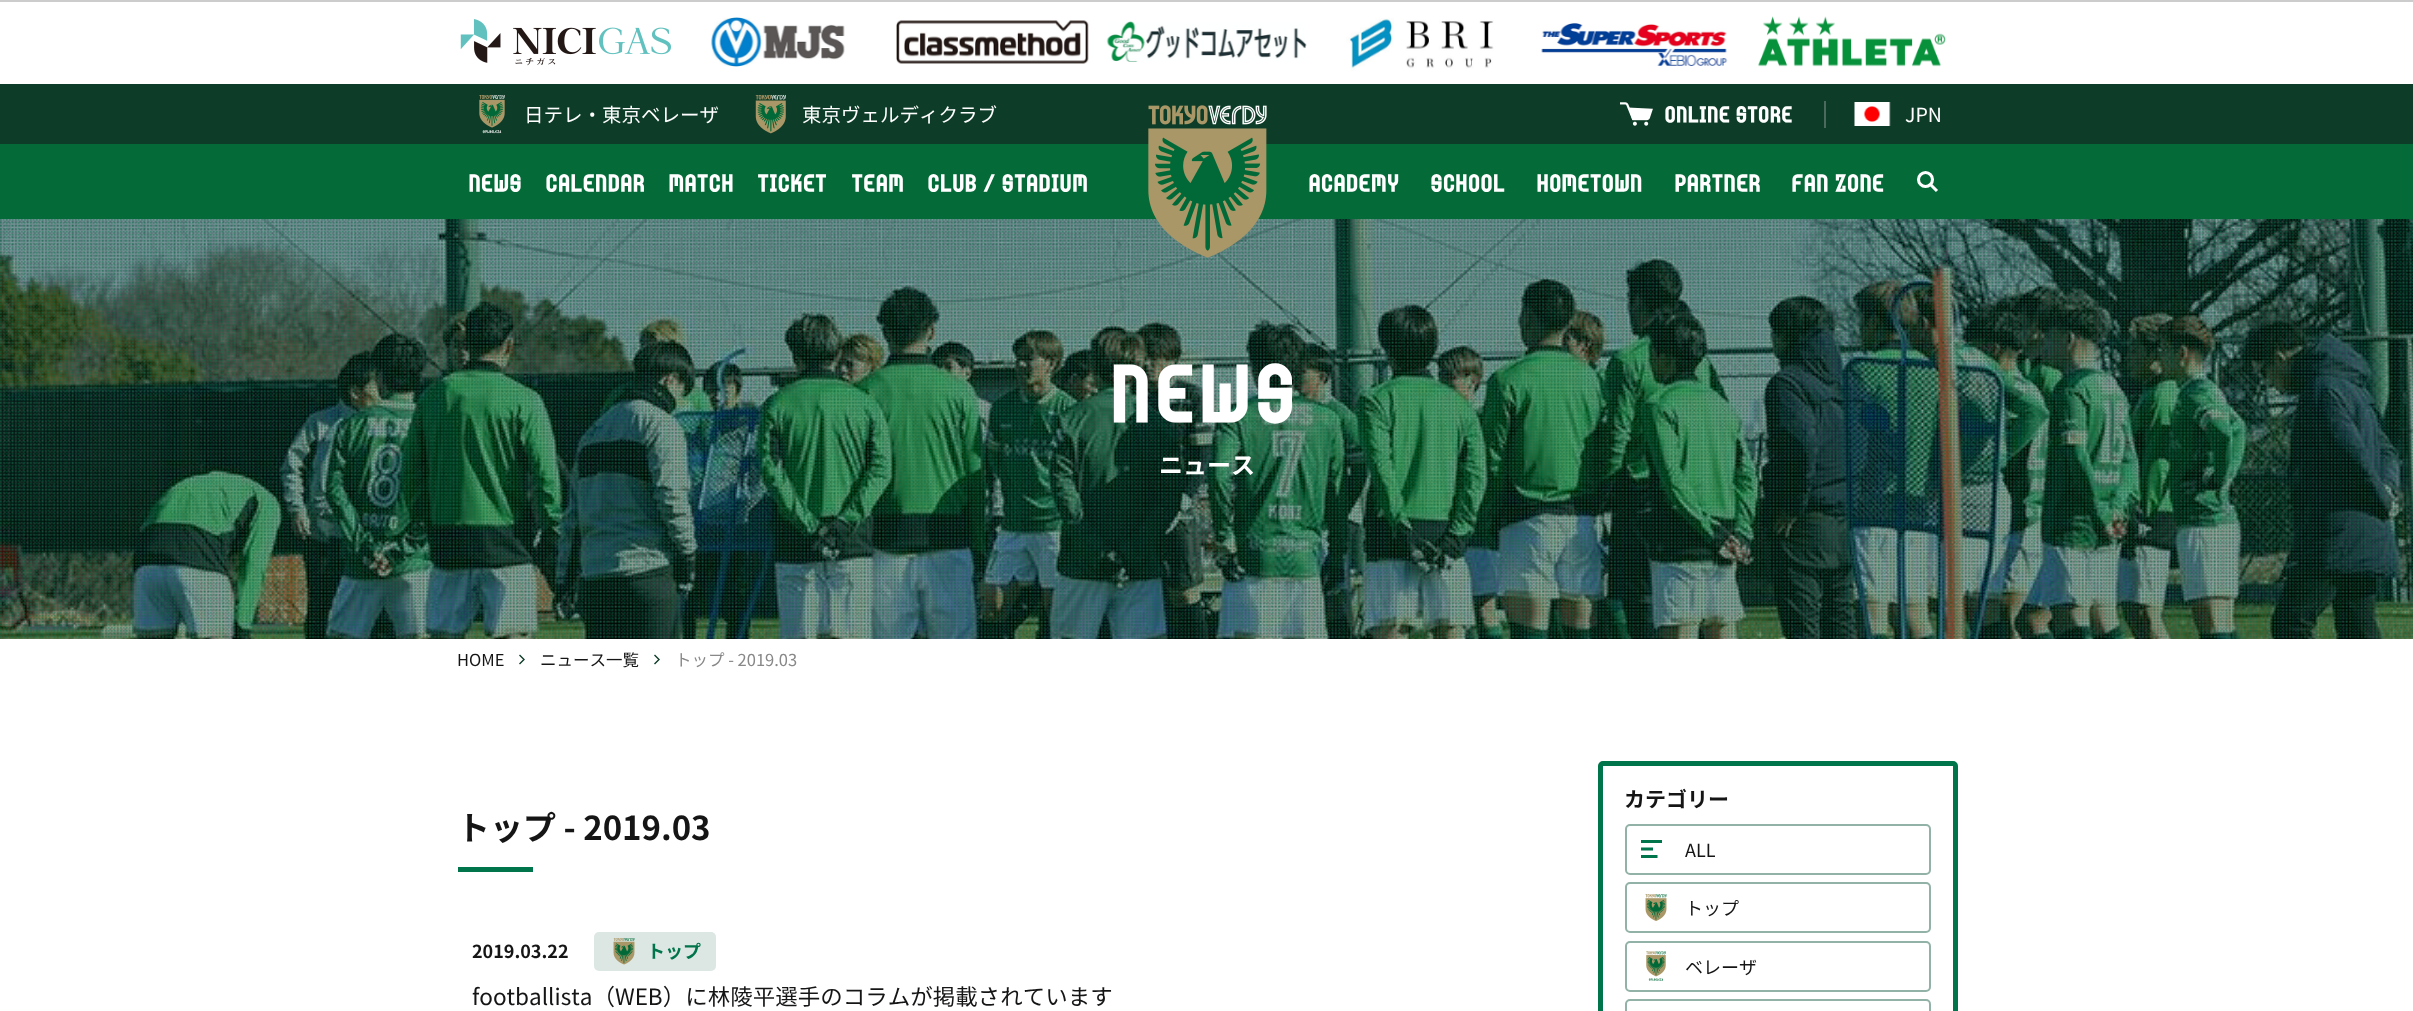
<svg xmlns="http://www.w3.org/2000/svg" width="2413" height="1011">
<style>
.a{font:19.5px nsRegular;fill:#fff}
.b{font:21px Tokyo;letter-spacing:1.25px;fill:#fff}
.c{font:22.5px Tokyo;letter-spacing:1.4px;fill:#fff}
.d{font:75px Tokyo;letter-spacing:7.5px;fill:#fff}
.e{font:bold 24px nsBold;fill:#fff}
.f{font:16.5px nsRegular;fill:#151515}
.g{font:16.5px nsRegular;fill:#888}
.h{font:bold 33px nsBold;fill:#151515}
.i{font:bold 18px nsBold;fill:#151515}
.j{font:bold 18px nsBold;fill:#00744b}
.k{font:22.5px nsRegular;fill:#151515}
.l{font:bold 21px nsBold;fill:#151515}
.m{font:18px nsRegular;fill:#151515}
</style>
<rect width="100%" height="100%" fill="#fff"/>
<path fill="#ccc" d="M0 0h2413v2H0z"/>
<image href="1.png" x="460" y="19" width="211" height="47"/>
<image href="2.png" x="711" y="17" width="134" height="50"/>
<image href="3.png" x="896" y="20" width="193" height="44"/>
<image href="4.png" x="1106" y="21" width="201" height="41"/>
<image href="5.png" x="1346" y="18" width="148" height="53"/>
<image href="6.png" x="1541" y="23" width="187" height="43"/>
<image href="7.png" x="1758" y="16" width="188" height="51"/>
<path fill="#0d3c28" d="M0 84h2413v60H0z"/>
<image href="8.png" x="755" y="95" width="31" height="39"/>
<image href="9.png" x="1620" y="102" width="33" height="24"/>
<path fill="#4b6a5d" d="M1824 101h2v27H1824z"/>
<image href="10.png" x="1854" y="102" width="37" height="24"/>
<path fill="#046a38" d="M0 144h2413v75H0z"/>
<circle fill="none" stroke="#fff" stroke-width="3.1" cx="1925.5" cy="179.5" r="7"/>
<path fill="none" stroke="#fff" stroke-width="3.1" d="M1930.5 184.5l6.5 6.5"/>
<image href="11.png" x="479" y="95" width="26" height="39"/>
<image href="13.png" x="0" y="219" width="2413" height="420"/>
<image href="14.png" x="0" y="219" width="2413" height="420"/>
<image href="12.png" x="1148" y="105" width="119" height="153"/>
<path fill="none" stroke="#0d3c28" stroke-width="1.4" d="M519.5 664l4.5-4.5l-4.5-4.5"/>
<path fill="none" stroke="#0d3c28" stroke-width="1.4" d="M654.5 664l4.5-4.5l-4.5-4.5"/>
<path fill="#00744b" d="M458 867h75v5H458z"/>
<rect fill="#dce7e3" x="594" y="932" width="122" height="39" rx="5"/>
<image href="15.png" x="613" y="938" width="22" height="27"/>
<rect fill="none" stroke="#00744b" stroke-width="5" x="1600.5" y="763.5" width="355" height="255" rx="2.5"/>
<image href="16.png" x="1641" y="840" width="21" height="18"/>
<rect fill="none" stroke="#93b2a7" stroke-width="2" x="1626" y="825" width="304" height="49" rx="4"/>
<image href="17.png" x="1645" y="894" width="22" height="27"/>
<rect fill="none" stroke="#93b2a7" stroke-width="2" x="1626" y="883" width="304" height="49" rx="4"/>
<image href="18.png" x="1646" y="951" width="20" height="30"/>
<rect fill="none" stroke="#93b2a7" stroke-width="2" x="1626" y="942" width="304" height="49" rx="4"/>
<rect fill="none" stroke="#93b2a7" stroke-width="2" x="1626" y="1000" width="304" height="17" rx="4"/>
<text class="a" x="802" y="122">東京ヴェルディクラブ</text>
<text class="b" x="1665" y="119">ONLINE STORE</text>
<text class="a" x="1905" y="122">JPN</text>
<text class="c" x="469" y="188">NEWS</text>
<text class="c" x="546" y="188">CALENDAR</text>
<text class="c" x="669" y="188">MATCH</text>
<text class="c" x="758" y="188">TICKET</text>
<text class="c" x="852" y="188">TEAM</text>
<text class="c" x="928" y="188">CLUB / STADIUM</text>
<text class="c" x="1309" y="188">ACADEMY</text>
<text class="c" x="1431" y="188">SCHOOL</text>
<text class="c" x="1537" y="188">HOMETOWN</text>
<text class="c" x="1675" y="188">PARTNER</text>
<text class="c" x="1792" y="188">FAN ZONE</text>
<text class="a" x="524" y="122">日テレ・東京ベレーザ</text>
<text class="d" x="1112" y="410">NEWS</text>
<text class="e" x="1159" y="474">ニュース</text>
<text class="f" x="457" y="666">HOME</text>
<text class="f" x="540" y="666">ニュース一覧</text>
<text class="g" x="675" y="666">トップ - 2019.03</text>
<text class="h" x="457" y="840">トップ - 2019.03</text>
<text class="i" x="472" y="958">2019.03.22</text>
<text class="j" x="647" y="958">トップ</text>
<text class="k" x="472" y="1005">footballista（WEB）に林陵平選手のコラムが掲載されています</text>
<text class="l" x="1624" y="807">カテゴリー</text>
<text class="m" x="1685" y="857">ALL</text>
<text class="m" x="1685" y="915">トップ</text>
<text class="m" x="1685" y="974">ベレーザ</text>
</svg>
